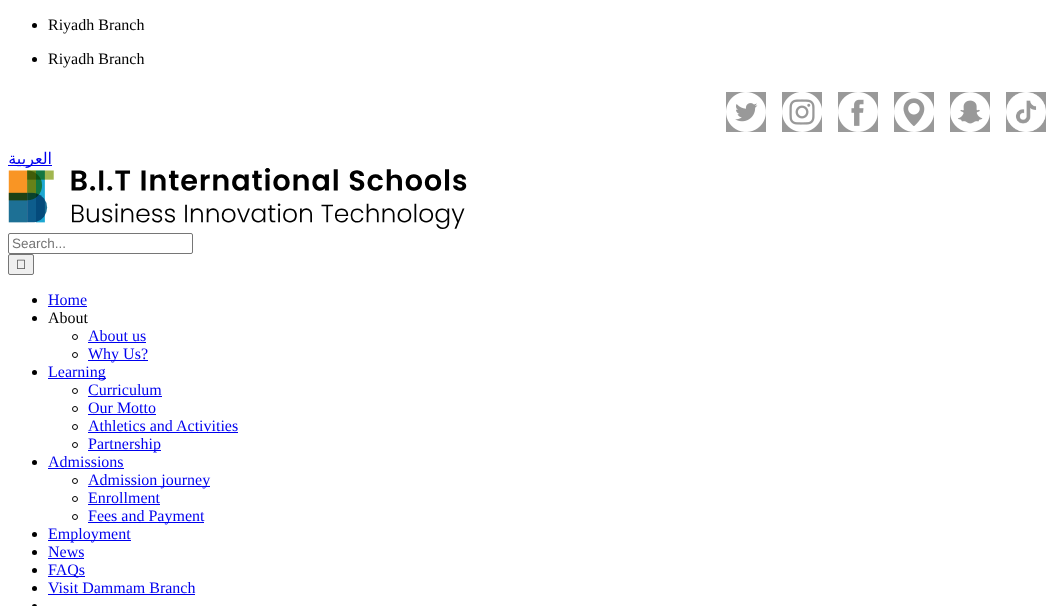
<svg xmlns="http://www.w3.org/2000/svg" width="1062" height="606">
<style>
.a{font:16px Liberation Serif;fill:#000}
.b{font:16px DejaVu Sans;direction:rtl;fill:#00e}
.c{font:13.5px Liberation Sans;fill:#757575}
.d{font:16px Liberation Serif;fill:#00e}
</style>
<rect width="100%" height="100%" fill="#fff"/>
<circle fill="#000" cx="34.5" cy="25.5" r="2.5"/>
<circle fill="#000" cx="34.5" cy="59.5" r="2.5"/>
<path fill="#999" d="M726 92h40v40H726z"/>
<image href="1.png" x="726" y="92" width="40" height="40"/>
<path fill="#999" d="M782 92h40v40H782z"/>
<image href="2.png" x="782" y="92" width="40" height="40"/>
<path fill="#999" d="M838 92h40v40H838z"/>
<image href="3.png" x="838" y="92" width="40" height="40"/>
<path fill="#999" d="M894 92h40v40H894z"/>
<image href="4.png" x="894" y="92" width="40" height="40"/>
<path fill="#999" d="M950 92h40v40H950z"/>
<image href="5.png" x="950" y="92" width="40" height="40"/>
<path fill="#999" d="M1006 92h40v40H1006z"/>
<image href="6.png" x="1006" y="92" width="40" height="40"/>
<path fill="#00e" d="M8 165h44v1H8z"/>
<image href="7.png" x="8" y="168" width="459" height="61"/>
<rect fill="none" stroke="#767676" x="8.5" y="233.5" width="184" height="20" rx="1.5"/>
<rect fill="#efefef" stroke="#767676" x="8.5" y="254.5" width="25" height="20" rx="1.5"/>
<image href="8.png" x="17" y="259" width="8" height="10"/>
<circle fill="#000" cx="34.5" cy="300.5" r="2.5"/>
<path fill="#00e" d="M48 306h39v1H48z"/>
<circle fill="#000" cx="34.5" cy="318.5" r="2.5"/>
<circle fill="none" stroke="#000" cx="75" cy="337" r="2.5"/>
<path fill="#00e" d="M88 342h58v1H88z"/>
<circle fill="none" stroke="#000" cx="75" cy="355" r="2.5"/>
<path fill="#00e" d="M88 360h60v1H88z"/>
<circle fill="#000" cx="34.5" cy="372.5" r="2.5"/>
<path fill="#00e" d="M48 378h58v1H48z"/>
<circle fill="none" stroke="#000" cx="75" cy="391" r="2.5"/>
<path fill="#00e" d="M88 396h74v1H88z"/>
<circle fill="none" stroke="#000" cx="75" cy="409" r="2.5"/>
<path fill="#00e" d="M88 414h68v1H88z"/>
<circle fill="none" stroke="#000" cx="75" cy="427" r="2.5"/>
<path fill="#00e" d="M88 432h150v1H88z"/>
<circle fill="none" stroke="#000" cx="75" cy="445" r="2.5"/>
<path fill="#00e" d="M88 450h73v1H88z"/>
<circle fill="#000" cx="34.5" cy="462.5" r="2.5"/>
<path fill="#00e" d="M48 468h76v1H48z"/>
<circle fill="none" stroke="#000" cx="75" cy="481" r="2.5"/>
<path fill="#00e" d="M88 486h122v1H88z"/>
<circle fill="none" stroke="#000" cx="75" cy="499" r="2.5"/>
<path fill="#00e" d="M88 504h72v1H88z"/>
<circle fill="none" stroke="#000" cx="75" cy="517" r="2.5"/>
<path fill="#00e" d="M88 522h116v1H88z"/>
<circle fill="#000" cx="34.5" cy="534.5" r="2.5"/>
<path fill="#00e" d="M48 540h83v1H48z"/>
<circle fill="#000" cx="34.5" cy="552.5" r="2.5"/>
<path fill="#00e" d="M48 558h36v1H48z"/>
<circle fill="#000" cx="34.5" cy="570.5" r="2.5"/>
<path fill="#00e" d="M48 576h37v1H48z"/>
<circle fill="#000" cx="34.5" cy="588.5" r="2.5"/>
<path fill="#00e" d="M48 594h147v1H48z"/>
<circle fill="#000" cx="34.5" cy="606.5" r="2.5"/>
<text class="a" x="48" y="30">Riyadh Branch</text>
<text class="a" x="48" y="64">Riyadh Branch</text>
<text class="b" x="52" y="164">العربية</text>
<text class="c" x="12" y="248">Search...</text>
<text class="d" x="48" y="305">Home</text>
<text class="a" x="48" y="323">About</text>
<text class="d" x="88" y="341">About us</text>
<text class="d" x="88" y="359">Why Us?</text>
<text class="d" x="48" y="377">Learning</text>
<text class="d" x="88" y="395">Curriculum</text>
<text class="d" x="88" y="413">Our Motto</text>
<text class="d" x="88" y="431">Athletics and Activities</text>
<text class="d" x="88" y="449">Partnership</text>
<text class="d" x="48" y="467">Admissions</text>
<text class="d" x="88" y="485">Admission journey</text>
<text class="d" x="88" y="503">Enrollment</text>
<text class="d" x="88" y="521">Fees and Payment</text>
<text class="d" x="48" y="539">Employment</text>
<text class="d" x="48" y="557">News</text>
<text class="d" x="48" y="575">FAQs</text>
<text class="d" x="48" y="593">Visit Dammam Branch</text>
</svg>
